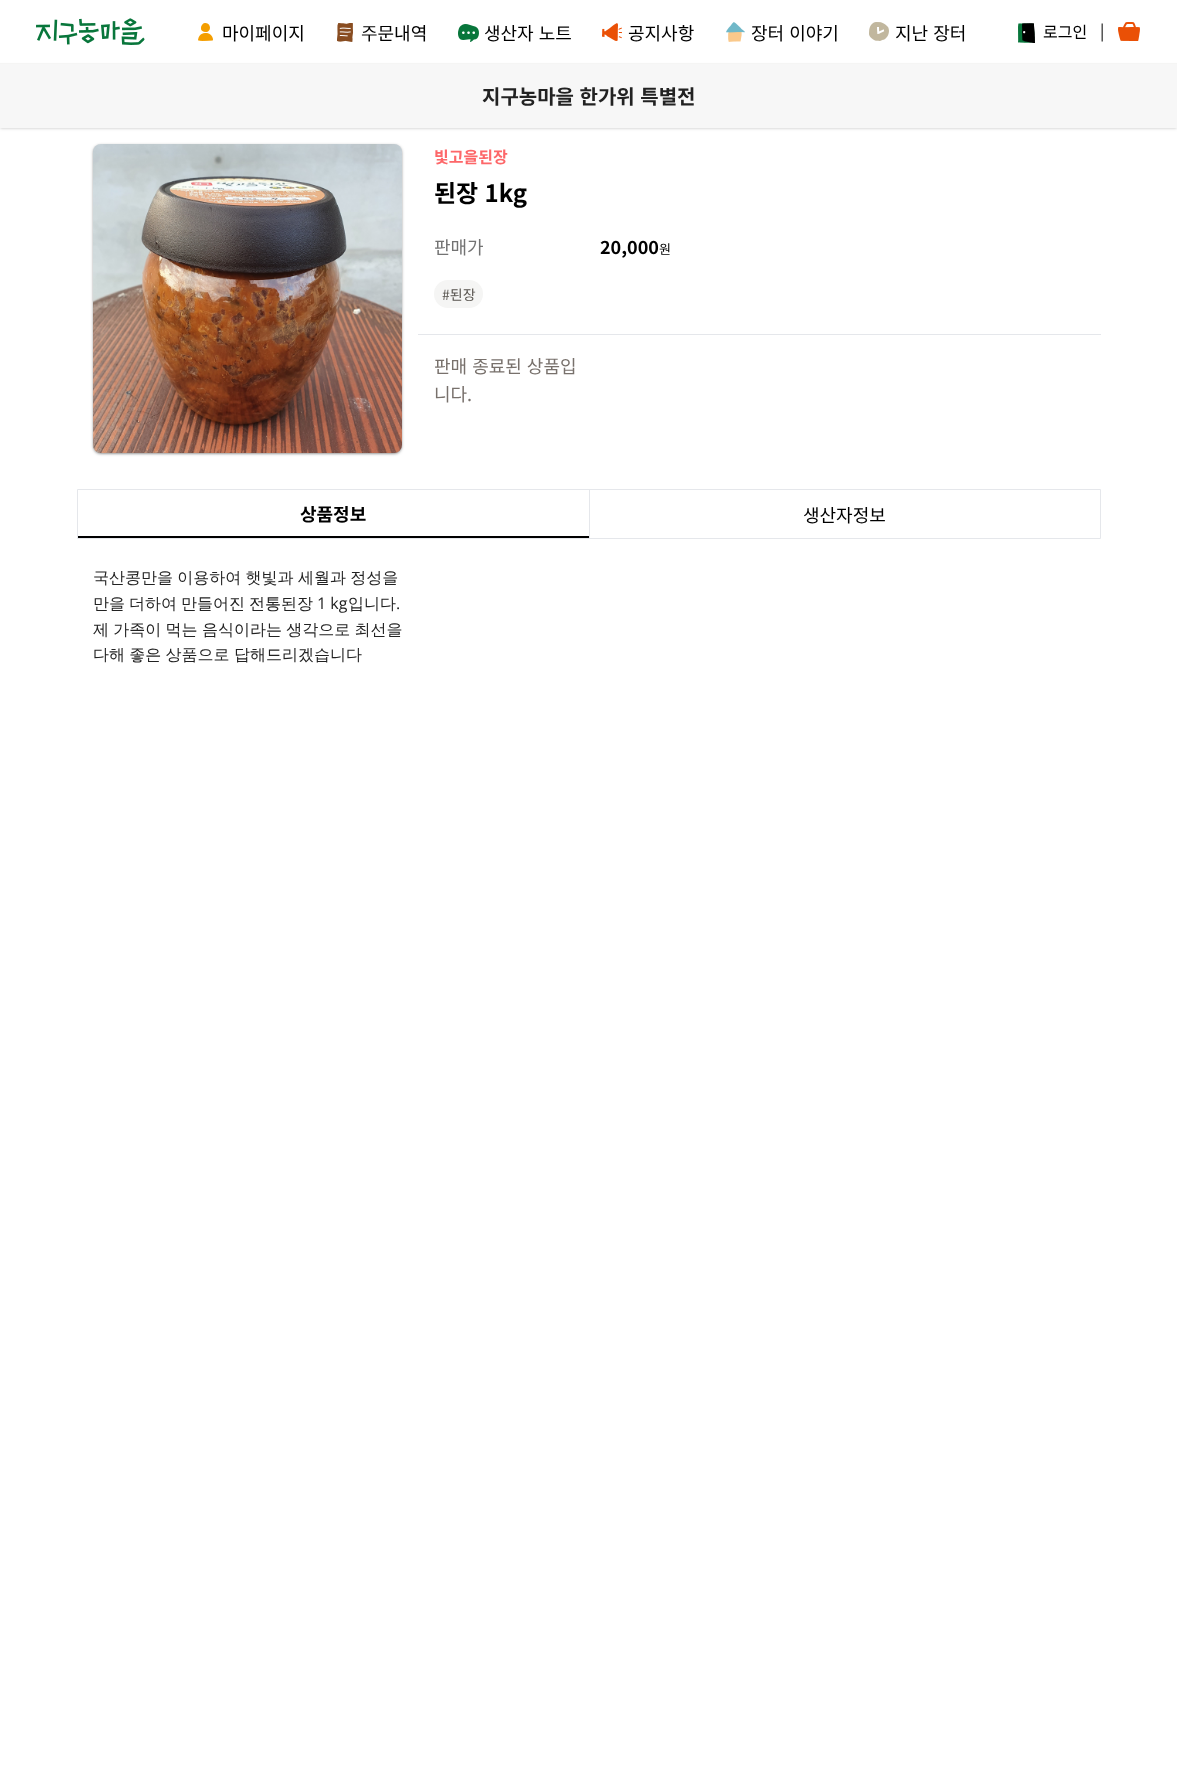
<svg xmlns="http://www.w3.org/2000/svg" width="1177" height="1766">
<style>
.a{font:18px Noto Sans KR;fill:#000}
.b{font:16px Noto Sans KR;fill:#000}
.c{font:bold 20px Noto Sans KR;fill:#222}
.d{font:bold 16px Noto Sans KR;fill:#fd6769}
.e{font:bold 24px Noto Sans KR;fill:#000}
.f{font:18px Noto Sans KR;fill:#737373}
.g{font:bold 18px Noto Sans KR;fill:#000}
.h{font:13px Noto Sans KR;fill:#000}
.i{font:14px Noto Sans KR;fill:#57534e}
.j{font:18px Noto Sans KR;fill:#78716c}
.k{font:500 16px WenQuanYi Zen Hei;fill:#222}
.l{font:16px Open Sans;fill:#222}
</style>
<rect width="100%" height="100%" fill="#fff"/>
<path fill="#0000001a" filter="blur(1px)" d="M1 66h1175v62H1z"/>
<path fill="#0000001a" filter="blur(1.5px)" d="M0 65h1177v64H0z"/>
<path fill="#f5f5f4" d="M0 63h1177v1H0z"/>
<image href="1.png" x="36" y="18" width="109" height="27"/>
<image href="2.png" x="198" y="23" width="15" height="18"/>
<image href="3.png" x="337" y="23" width="16" height="19"/>
<image href="4.png" x="458" y="24" width="21" height="18"/>
<image href="5.png" x="602" y="23" width="20" height="18"/>
<image href="6.png" x="726" y="22" width="19" height="20"/>
<image href="7.png" x="869" y="22" width="20" height="19"/>
<image href="8.png" x="1018" y="23" width="17" height="20"/>
<image href="9.png" x="1118" y="22" width="22" height="19"/>
<path fill="#f7f7f7" d="M0 64h1177v64H0z"/>
<rect fill="#0000004d" filter="blur(1px)" x="94" y="146" width="307" height="307" rx="7"/>
<rect fill="#0000004d" filter="blur(1.5px)" x="93" y="145" width="309" height="309" rx="8"/>
<image href="10.png" x="93" y="144" width="309" height="309"/>
<rect fill="#f5f5f4" x="434" y="280" width="49" height="28" rx="14"/>
<path fill="#e5e7eb" d="M418 334h683v1H418z"/>
<path fill="none" stroke="#e5e7eb" d="M77.5 489.5h1023v49H77.5z"/>
<path fill="#000" d="M78 536h511v2H78z"/>
<path fill="#e5e7eb" d="M589 490h1v48H589z"/>
<text class="a" x="222" y="40">마이페이지</text>
<text class="a" x="361" y="40">주문내역</text>
<text class="a" x="484" y="40" word-spacing="1">생산자 노트</text>
<text class="a" x="628" y="40">공지사항</text>
<text class="a" x="751" y="40" word-spacing="1">장터 이야기</text>
<text class="a" x="895" y="40" word-spacing="1">지난 장터</text>
<text class="b" x="1043" y="38">로그인</text>
<text class="b" x="1100" y="37">|</text>
<text class="c" x="482" y="104" word-spacing="1">지구농마을 한가위 특별전</text>
<text class="d" x="434" y="163">빛고을된장</text>
<text class="e" x="434" y="202" word-spacing="1">된장 1kg</text>
<text class="f" x="434" y="254">판매가</text>
<text class="g" x="600" y="254">20,000</text>
<text class="h" x="659" y="254">원</text>
<text class="i" x="442" y="300">#된장</text>
<text class="j" x="434" y="373" word-spacing="1">판매 종료된 상품입</text>
<text class="j" x="434" y="401">니다.</text>
<text class="g" x="300" y="521">상품정보</text>
<text class="a" x="803" y="522">생산자정보</text>
<text class="k" x="93" y="583" word-spacing="-0.5">국산콩만을 이용하여 햇빛과 세월과 정성을</text>
<text class="k" x="93" y="609">만을</text>
<text class="k" x="129" y="609">더하여</text>
<text class="k" x="181" y="609">만들어진</text>
<text class="k" x="249" y="609">전통된장</text>
<text class="l" x="317" y="609">1 kg</text>
<text class="k" x="348" y="609">입니다</text>
<text class="l" x="396" y="609">.</text>
<text class="k" x="93" y="635" word-spacing="-0.5">제 가족이 먹는 음식이라는 생각으로 최선을</text>
<text class="k" x="93" y="660" word-spacing="-0.5">다해 좋은 상품으로 답해드리겠습니다</text>
</svg>
